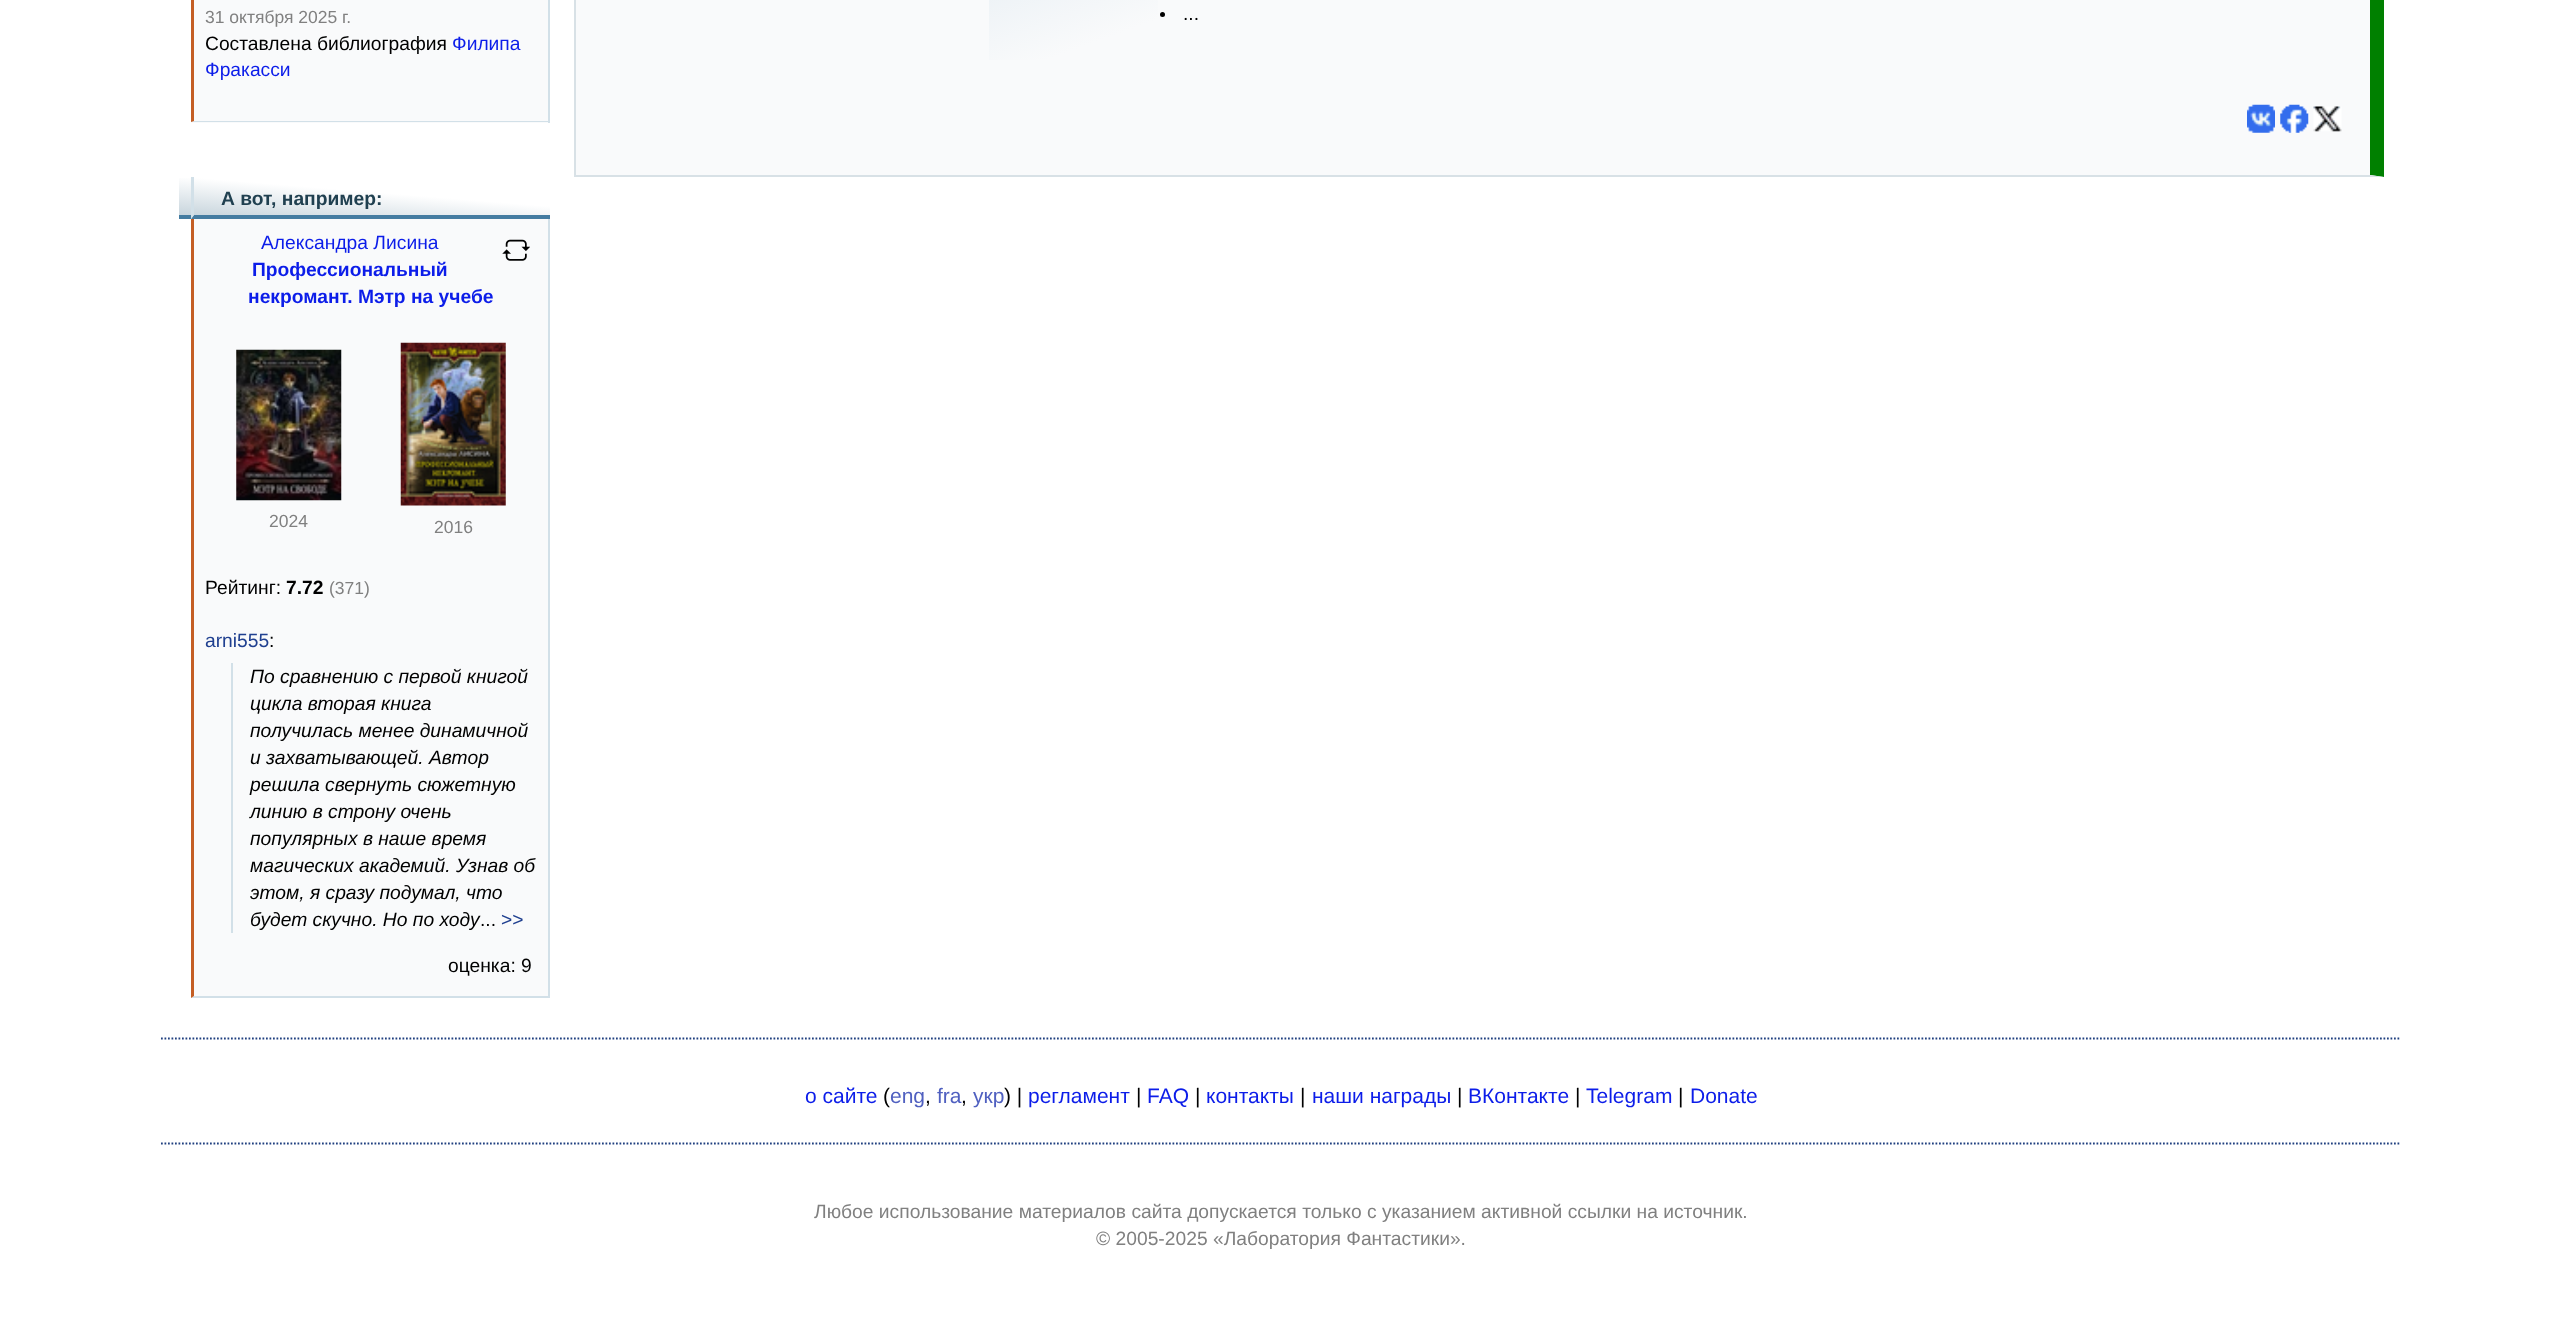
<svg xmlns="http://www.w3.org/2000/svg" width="2562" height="1332">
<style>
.a{font:17.5px Liberation Sans;fill:#808080}
.b{font:19.25px Liberation Sans;fill:#000}
.c{font:19.25px Liberation Sans;fill:#0c1de9}
.d{font:bold 19.25px Liberation Sans;fill:#204050}
.e{font:bold 19.25px Liberation Sans;fill:#0c1de9}
.f{font:bold 19.25px Liberation Sans;fill:#000}
.g{font:19.25px Liberation Sans;fill:#204090}
.h{font:italic 19.25px Liberation Sans;fill:#000}
.i{font:21px Liberation Sans;fill:#0c1de9}
.j{font:21px Liberation Sans;fill:#000}
.k{font:21px Liberation Sans;fill:#5060c0}
.l{font:19.25px Liberation Sans;fill:#808080}
</style>
<defs>
<linearGradient id="g1" gradientUnits="userSpaceOnUse" x1="361" y1="235" x2="367" y2="161"><stop offset="0" stop-color="#c0cfd8"/><stop offset="0.59" stop-color="#fff"/></linearGradient>
<linearGradient id="g2" gradientUnits="userSpaceOnUse" x1="1246" y1="-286" x2="1406" y2="153"><stop offset="0" stop-color="#d5e3ec"/><stop offset="0.55" stop-color="#f9fafb"/></linearGradient>
</defs>
<rect width="100%" height="100%" fill="#fff"/>
<path fill="#f9fafb" d="M191 0h357v123H191z"/>
<path fill="#d2e0e8" d="M548 0h2v123H548z"/>
<path fill="#d2e0e8" d="M550 122h-359l3-1h354z"/>
<path fill="#c45e24" d="M191 122v-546h3v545z"/>
<path fill="url(#g1)" d="M179 178h371v41H179z"/>
<path fill="#447ca1" d="M550 219h-359l3-4h356z"/>
<path fill="#d2e0e8" d="M191 219v-42h3v38z"/>
<path fill="#447ca1" d="M179 215h12v4H179z"/>
<path fill="#f9fafb" d="M191 219h357v779H191z"/>
<path fill="#d2e0e8" d="M548 219h2v779H548z"/>
<path fill="#d2e0e8" d="M550 998h-359l3-2h354z"/>
<path fill="#c45e24" d="M191 998v-779h3v777z"/>
<image href="1.png" x="502" y="239" width="28" height="22"/>
<image href="2.png" x="236" y="349" width="106" height="152"/>
<image href="3.png" x="400" y="342" width="106" height="164"/>
<path fill="#d2e0e8" d="M231 663h2v270H231z"/>
<path fill="#f9fafb" d="M576 0h1794v175H576z"/>
<path fill="#008000" d="M2384-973v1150l-14-2v-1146z"/>
<path fill="#d8e1e6" d="M2384 177h-1810l2-2h1794z"/>
<path fill="#d8e1e6" d="M574 0h2v177H574z"/>
<path fill="url(#g2)" d="M989 0h169v60H989z"/>
<circle fill="#000" cx="1162.5" cy="14.5" r="2.5"/>
<image href="4.png" x="2247" y="104" width="28" height="29"/>
<image href="5.png" x="2280" y="104" width="29" height="29"/>
<image href="6.png" x="2313" y="106" width="29" height="26"/>
<path fill="none" stroke="#204080" stroke-width="1.8" stroke-dasharray="1.75 1.75" d="M161 1038.5h2240"/>
<path fill="none" stroke="#204080" stroke-width="1.8" stroke-dasharray="1.75 1.75" d="M161 1143.5h2240"/>
<text class="a" x="205" y="23">31 октября 2025 г.</text>
<text class="b" x="205" y="50">Составлена библиография</text>
<text class="c" x="452" y="50">Филипа</text>
<text class="c" x="205" y="76">Фракасси</text>
<text class="d" x="221" y="205">А вот, например:</text>
<text class="c" x="261" y="249">Александра Лисина</text>
<text class="e" x="252" y="276">Профессиональный</text>
<text class="e" x="248" y="303">некромант. Мэтр на учебе</text>
<text class="a" x="269" y="527">2024</text>
<text class="a" x="434" y="533">2016</text>
<text class="b" x="205" y="594">Рейтинг:</text>
<text class="f" x="286" y="594">7.72</text>
<text class="a" x="329" y="594">(371)</text>
<text class="g" x="205" y="647">arni555</text>
<text class="b" x="269" y="647">:</text>
<text class="h" x="250" y="683">По сравнению с первой книгой</text>
<text class="h" x="250" y="710">цикла вторая книга</text>
<text class="h" x="250" y="737">получилась менее динамичной</text>
<text class="h" x="250" y="764">и захватывающей. Автор</text>
<text class="h" x="250" y="791">решила свернуть сюжетную</text>
<text class="h" x="250" y="818">линию в строну очень</text>
<text class="h" x="250" y="845">популярных в наше время</text>
<text class="h" x="250" y="872">магических академий. Узнав об</text>
<text class="h" x="250" y="899">этом, я сразу подумал, что</text>
<text class="h" x="250" y="926">будет скучно. Но по ходу</text>
<text class="b" x="480" y="926">...</text>
<text class="g" x="501" y="926">&gt;&gt;</text>
<text class="b" x="448" y="972">оценка: 9</text>
<text class="b" x="1183" y="20">...</text>
<text class="i" x="805" y="1103">о сайте</text>
<text class="j" x="883" y="1103">(</text>
<text class="k" x="890" y="1103">eng</text>
<text class="j" x="925" y="1103">,</text>
<text class="k" x="937" y="1103">fra</text>
<text class="j" x="961" y="1103">,</text>
<text class="k" x="973" y="1103">укр</text>
<text class="j" x="1004" y="1103">) |</text>
<text class="i" x="1028" y="1103">регламент</text>
<text class="j" x="1136" y="1103">|</text>
<text class="i" x="1147" y="1103">FAQ</text>
<text class="j" x="1195" y="1103">|</text>
<text class="i" x="1206" y="1103">контакты</text>
<text class="j" x="1300" y="1103">|</text>
<text class="i" x="1312" y="1103">наши награды</text>
<text class="j" x="1457" y="1103">|</text>
<text class="i" x="1468" y="1103">ВКонтакте</text>
<text class="j" x="1575" y="1103">|</text>
<text class="i" x="1586" y="1103">Telegram</text>
<text class="j" x="1678" y="1103">|</text>
<text class="i" x="1690" y="1103">Donate</text>
<text class="l" x="814" y="1218">Любое использование материалов сайта допускается только с указанием активной ссылки на источник.</text>
<text class="l" x="1096" y="1245">© 2005-2025 «Лаборатория Фантастики».</text>
</svg>
